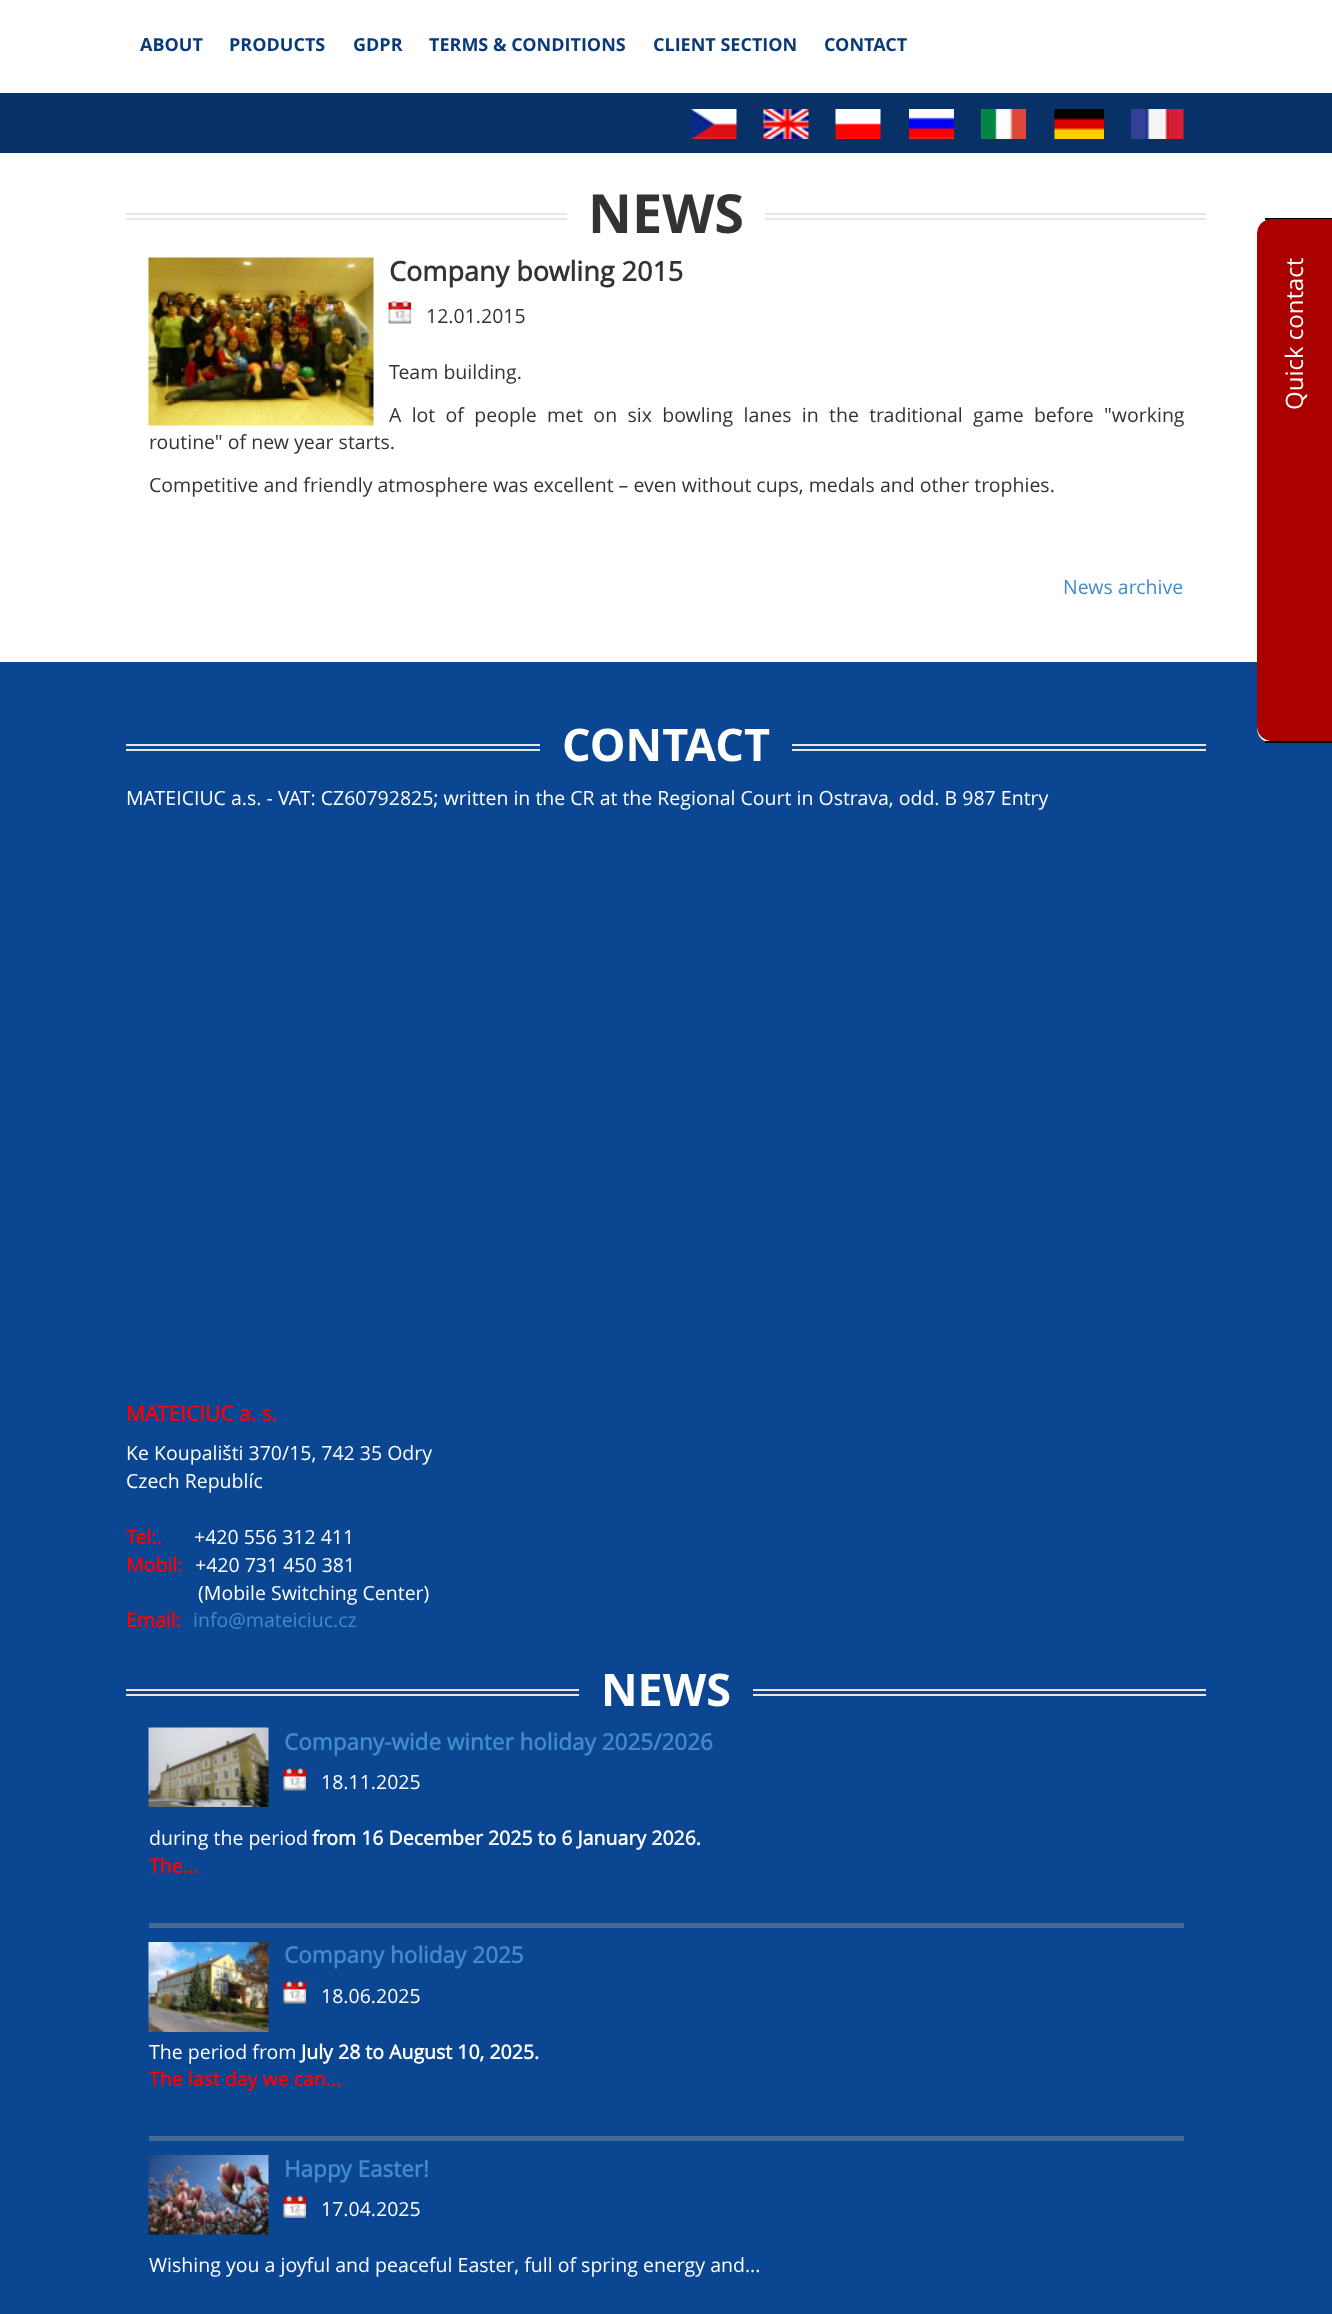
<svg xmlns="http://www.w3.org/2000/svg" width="1332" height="2314">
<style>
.a{font:bold 18px Open Sans;fill:#093a7a}
.b{font:bold 54px Open Sans;fill:#333}
.c{font:bold 27px 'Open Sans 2';fill:#333}
.d{font:19.5px Open Sans;fill:#333}
.e{font:19.5px Open Sans;fill:#428bca}
.f{font:24px Open Sans;fill:#fff}
.g{font:bold 45px Open Sans;fill:#fff}
.h{font:19.5px Open Sans;fill:#fff}
.i{font:bold 21px 'Open Sans 2';fill:#f00}
.j{font:bold 19.5px 'Open Sans 2';fill:#f00}
.k{font:bold 22.5px 'Open Sans 2';fill:#428bca}
.l{font:bold 19.5px 'Open Sans 2';fill:#fff}
</style>
<rect width="100%" height="100%" fill="#fff"/>
<path fill="#083167" d="M0 93h1332v60H0z"/>
<image href="1.png" x="691" y="109" width="46" height="30"/>
<image href="2.png" x="763" y="109" width="46" height="30"/>
<image href="3.png" x="835" y="109" width="46" height="30"/>
<image href="4.png" x="909" y="109" width="45" height="30"/>
<image href="5.png" x="981" y="109" width="45" height="30"/>
<image href="6.png" x="1054" y="109" width="50" height="30"/>
<image href="7.png" x="1131" y="109" width="53" height="30"/>
<path fill="#e7e7e7" d="M126 213h441v2H126z"/>
<path fill="#e7e7e7" d="M126 218h441v2H126z"/>
<path fill="#e7e7e7" d="M765 213h441v2H765z"/>
<path fill="#e7e7e7" d="M765 218h441v2H765z"/>
<image href="8.png" x="148" y="257" width="226" height="169"/>
<image href="9.png" x="388" y="301" width="23" height="23"/>
<path fill="#0b4692" d="M0 662h1332v1652H0z"/>
<path fill="#fff" d="M1272 218h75v525h-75c-8.5 0-15-6.5-15-15v-495c0-8.5 6.5-15 15-15z"/>
<path fill="#000" d="M1265 218h67v2H1265z"/>
<path fill="#000" d="M1265 741h67v2H1265z"/>
<path fill="#a00" d="M1272 219h60v522h-60c-8.5 0-15-6.5-15-15v-492c0-8.5 6.5-15 15-15z"/>
<path fill="#e7e7e7" d="M126 744h414v2H126z"/>
<path fill="#e7e7e7" d="M126 749h414v2H126z"/>
<path fill="#e7e7e7" d="M792 744h414v2H792z"/>
<path fill="#e7e7e7" d="M792 749h414v2H792z"/>
<path fill="#e7e7e7" d="M126 1689h453v2H126z"/>
<path fill="#e7e7e7" d="M126 1694h453v2H126z"/>
<path fill="#e7e7e7" d="M753 1689h453v2H753z"/>
<path fill="#e7e7e7" d="M753 1694h453v2H753z"/>
<image href="10.png" x="148" y="1727" width="121" height="80"/>
<image href="11.png" x="283" y="1768" width="23" height="23"/>
<path fill="#466991" d="M149 1923h1035v5H149z"/>
<image href="12.png" x="148" y="1942" width="121" height="90"/>
<image href="11.png" x="283" y="1981" width="23" height="23"/>
<path fill="#466991" d="M149 2136h1035v5H149z"/>
<image href="13.png" x="148" y="2155" width="121" height="80"/>
<image href="14.png" x="283" y="2195" width="23" height="23"/>
<text class="a" x="140" y="51">ABOUT</text>
<text class="a" x="229" y="51">PRODUCTS</text>
<text class="a" x="353" y="51">GDPR</text>
<text class="a" x="429" y="51">TERMS &amp; CONDITIONS</text>
<text class="a" x="653" y="51">CLIENT SECTION</text>
<text class="a" x="824" y="51">CONTACT</text>
<text class="b" x="588" y="233">NEWS</text>
<text class="c" x="389" y="281">Company bowling 2015</text>
<text class="d" x="426" y="323">12.01.2015</text>
<text class="d" x="389" y="379">Team building.</text>
<text class="d" x="389" y="422" word-spacing="5.25">A lot of people met on six bowling lanes in the traditional game before "working</text>
<text class="d" x="149" y="449">routine" of new year starts.</text>
<text class="d" x="149" y="492">Competitive and friendly atmosphere was excellent – even without cups, medals and other trophies.</text>
<text class="e" x="1063" y="594">News archive</text>
<text class="f" x="1303" y="410" transform="rotate(-90 1303 410)">Quick contact</text>
<text class="g" x="562" y="761">CONTACT</text>
<text class="h" x="126" y="805">MATEICIUC a.s. - VAT: CZ60792825; written in the CR at the Regional Court in Ostrava, odd. B 987 Entry</text>
<text class="i" x="126" y="1421">MATEICIUC a. s.</text>
<text class="h" x="126" y="1460">Ke Koupališti 370/15, 742 35 Odry</text>
<text class="h" x="126" y="1488">Czech Republíc</text>
<text class="j" x="126" y="1544">Tel:.</text>
<text class="h" x="194" y="1544">+420 556 312 411</text>
<text class="j" x="126" y="1572">Mobil:</text>
<text class="h" x="195" y="1572">+420 731 450 381</text>
<text class="h" x="198" y="1600">(Mobile Switching Center)</text>
<text class="j" x="126" y="1627">Email:</text>
<text class="e" x="193" y="1627">info@mateiciuc.cz</text>
<text class="g" x="601" y="1706">NEWS</text>
<text class="k" x="284" y="1750">Company-wide winter holiday 2025/2026</text>
<text class="h" x="321" y="1789">18.11.2025</text>
<text class="h" x="149" y="1845">during the period</text>
<text class="l" x="312" y="1845">from 16 December 2025 to 6 January 2026.</text>
<text class="j" x="149" y="1873">The...</text>
<text class="k" x="284" y="1963">Company holiday 2025</text>
<text class="h" x="321" y="2003">18.06.2025</text>
<text class="h" x="149" y="2059">The period from</text>
<text class="l" x="301" y="2059">July 28 to August 10, 2025.</text>
<text class="j" x="149" y="2086">The last day we can...</text>
<text class="k" x="284" y="2177">Happy Easter!</text>
<text class="h" x="321" y="2216">17.04.2025</text>
<text class="h" x="149" y="2272">Wishing you a joyful and peaceful Easter, full of spring energy and...</text>
</svg>
